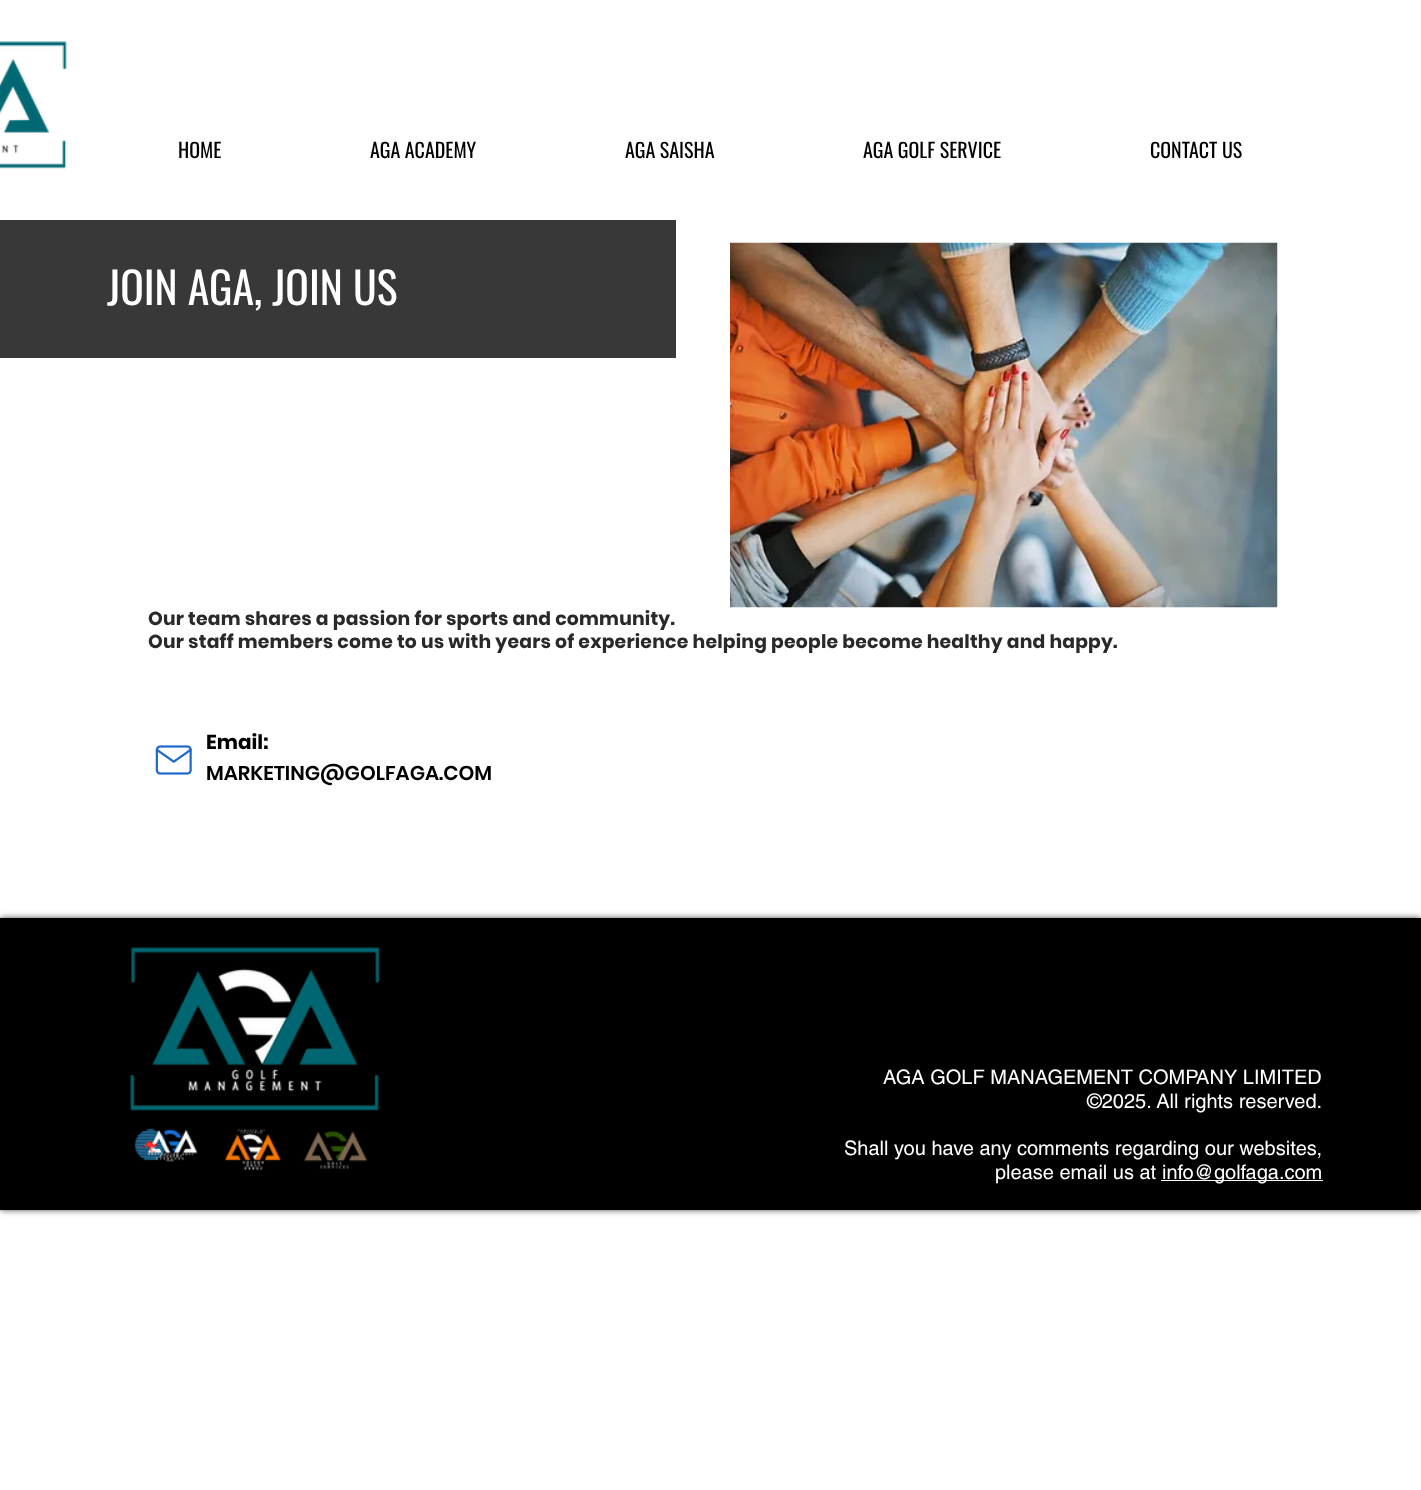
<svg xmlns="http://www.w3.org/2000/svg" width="1421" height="1490">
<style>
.a{font:20px Oswald;fill:#000}
.b{font:43.75px Oswald;fill:#fff}
.c{font:bold 18.75px Poppins;letter-spacing:0.2px;fill:#292929}
.d{font:bold 20px Poppins;fill:#000}
.e{font:600 20px Poppins;fill:#000}
.f{font:20px helvetica;fill:#fff}
</style>
<rect width="100%" height="100%" fill="#fff"/>
<image href="1.png" x="0" y="41" width="67" height="128"/>
<path fill="#383838" d="M0 220h676v138H0z"/>
<image href="2.png" x="730" y="242" width="548" height="366"/>
<image href="3.png" x="155" y="745" width="37" height="30"/>
<path fill="#000000b3" filter="blur(3px)" d="M0 918h1421v292H0z"/>
<path fill="#000" d="M0 918h1421v292H0z"/>
<image href="4.png" x="130" y="947" width="250" height="164"/>
<image href="5.png" x="134" y="1128" width="64" height="34"/>
<image href="6.png" x="224" y="1128" width="58" height="43"/>
<image href="7.png" x="303" y="1131" width="65" height="38"/>
<path fill="#fff" d="M1161 1180h162v1H1161z"/>
<text class="a" x="178" y="158">HOME</text>
<text class="a" x="370" y="158">AGA ACADEMY</text>
<text class="a" x="625" y="158">AGA SAISHA</text>
<text class="a" x="863" y="158">AGA GOLF SERVICE</text>
<text class="a" x="1150" y="158">CONTACT US</text>
<text class="b" x="107" y="305">JOIN AGA, JOIN US</text>
<text class="c" x="148" y="625">Our team shares a passion for sports and community.</text>
<text class="c" x="148" y="648">Our staff members come to us with years of experience helping people become healthy and happy.</text>
<text class="d" x="206" y="749">Email:</text>
<text class="e" x="206" y="780">MARKETING@GOLFAGA.COM</text>
<text class="f" x="883" y="1084">AGA GOLF MANAGEMENT COMPANY LIMITED</text>
<text class="f" x="1087" y="1108">©2025. All rights reserved.</text>
<text class="f" x="844" y="1155">Shall you have any comments regarding our websites,</text>
<text class="f" x="995" y="1179">please email us at</text>
<text class="f" x="1162" y="1179">info@golfaga.com</text>
</svg>
